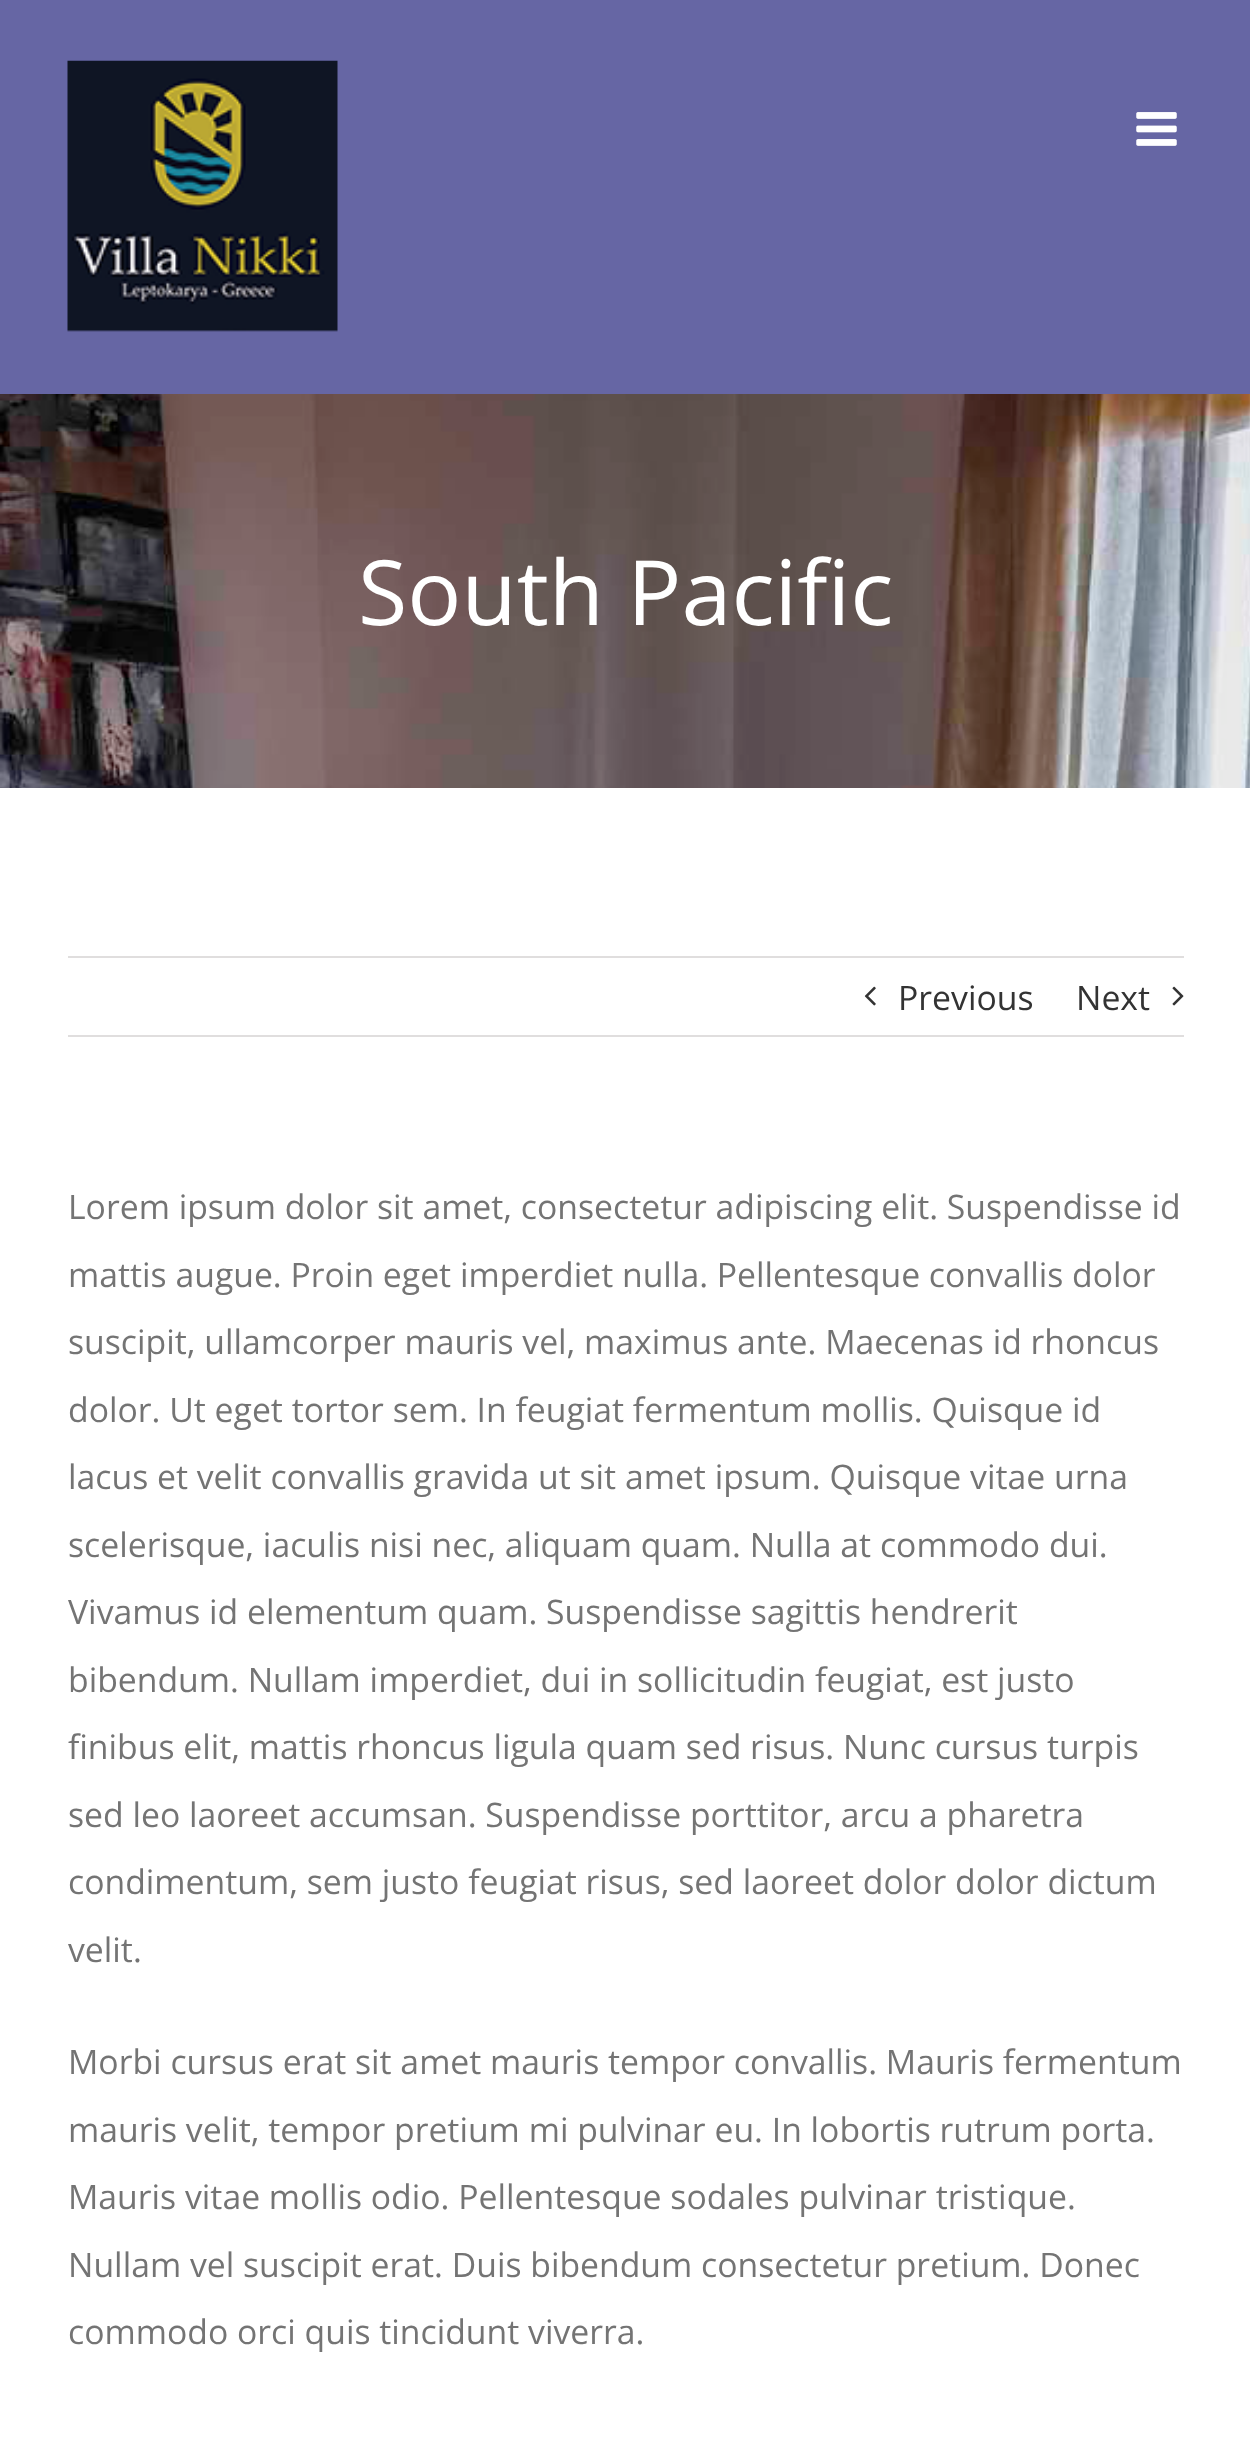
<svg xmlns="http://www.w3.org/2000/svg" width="1250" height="2462">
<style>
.a{font:90px Open Sans;fill:#fff}
.b{font:33.75px Open Sans;fill:#333}
.c{font:33.75px Open Sans;fill:#747474}
</style>
<rect width="100%" height="100%" fill="#fff"/>
<path fill="#6666a4" d="M0 0h1250v394H0z"/>
<image href="1.png" x="67" y="60" width="271" height="272"/>
<image href="2.png" x="1136" y="112" width="41" height="34"/>
<image href="3.png" x="0" y="394" width="1250" height="394"/>
<path fill="#e0dede" d="M68 956h1116v2H68z"/>
<path fill="#e0dede" d="M68 1035h1116v2H68z"/>
<image href="4.png" x="864" y="986" width="12" height="20"/>
<image href="5.png" x="1172" y="986" width="12" height="20"/>
<text class="a" x="358" y="625">South Pacific</text>
<text class="b" x="898" y="1010">Previous</text>
<text class="b" x="1076" y="1010">Next</text>
<text class="c" x="68" y="1219">Lorem ipsum dolor sit amet, consectetur adipiscing elit. Suspendisse id</text>
<text class="c" x="68" y="1287">mattis augue. Proin eget imperdiet nulla. Pellentesque convallis dolor</text>
<text class="c" x="68" y="1354">suscipit, ullamcorper mauris vel, maximus ante. Maecenas id rhoncus</text>
<text class="c" x="68" y="1422">dolor. Ut eget tortor sem. In feugiat fermentum mollis. Quisque id</text>
<text class="c" x="68" y="1489">lacus et velit convallis gravida ut sit amet ipsum. Quisque vitae urna</text>
<text class="c" x="68" y="1557">scelerisque, iaculis nisi nec, aliquam quam. Nulla at commodo dui.</text>
<text class="c" x="68" y="1624">Vivamus id elementum quam. Suspendisse sagittis hendrerit</text>
<text class="c" x="68" y="1692">bibendum. Nullam imperdiet, dui in sollicitudin feugiat, est justo</text>
<text class="c" x="68" y="1759">finibus elit, mattis rhoncus ligula quam sed risus. Nunc cursus turpis</text>
<text class="c" x="68" y="1827">sed leo laoreet accumsan. Suspendisse porttitor, arcu a pharetra</text>
<text class="c" x="68" y="1894">condimentum, sem justo feugiat risus, sed laoreet dolor dolor dictum</text>
<text class="c" x="68" y="1962">velit.</text>
<text class="c" x="68" y="2074">Morbi cursus erat sit amet mauris tempor convallis. Mauris fermentum</text>
<text class="c" x="68" y="2142">mauris velit, tempor pretium mi pulvinar eu. In lobortis rutrum porta.</text>
<text class="c" x="68" y="2209">Mauris vitae mollis odio. Pellentesque sodales pulvinar tristique.</text>
<text class="c" x="68" y="2277">Nullam vel suscipit erat. Duis bibendum consectetur pretium. Donec</text>
<text class="c" x="68" y="2344">commodo orci quis tincidunt viverra.</text>
</svg>
